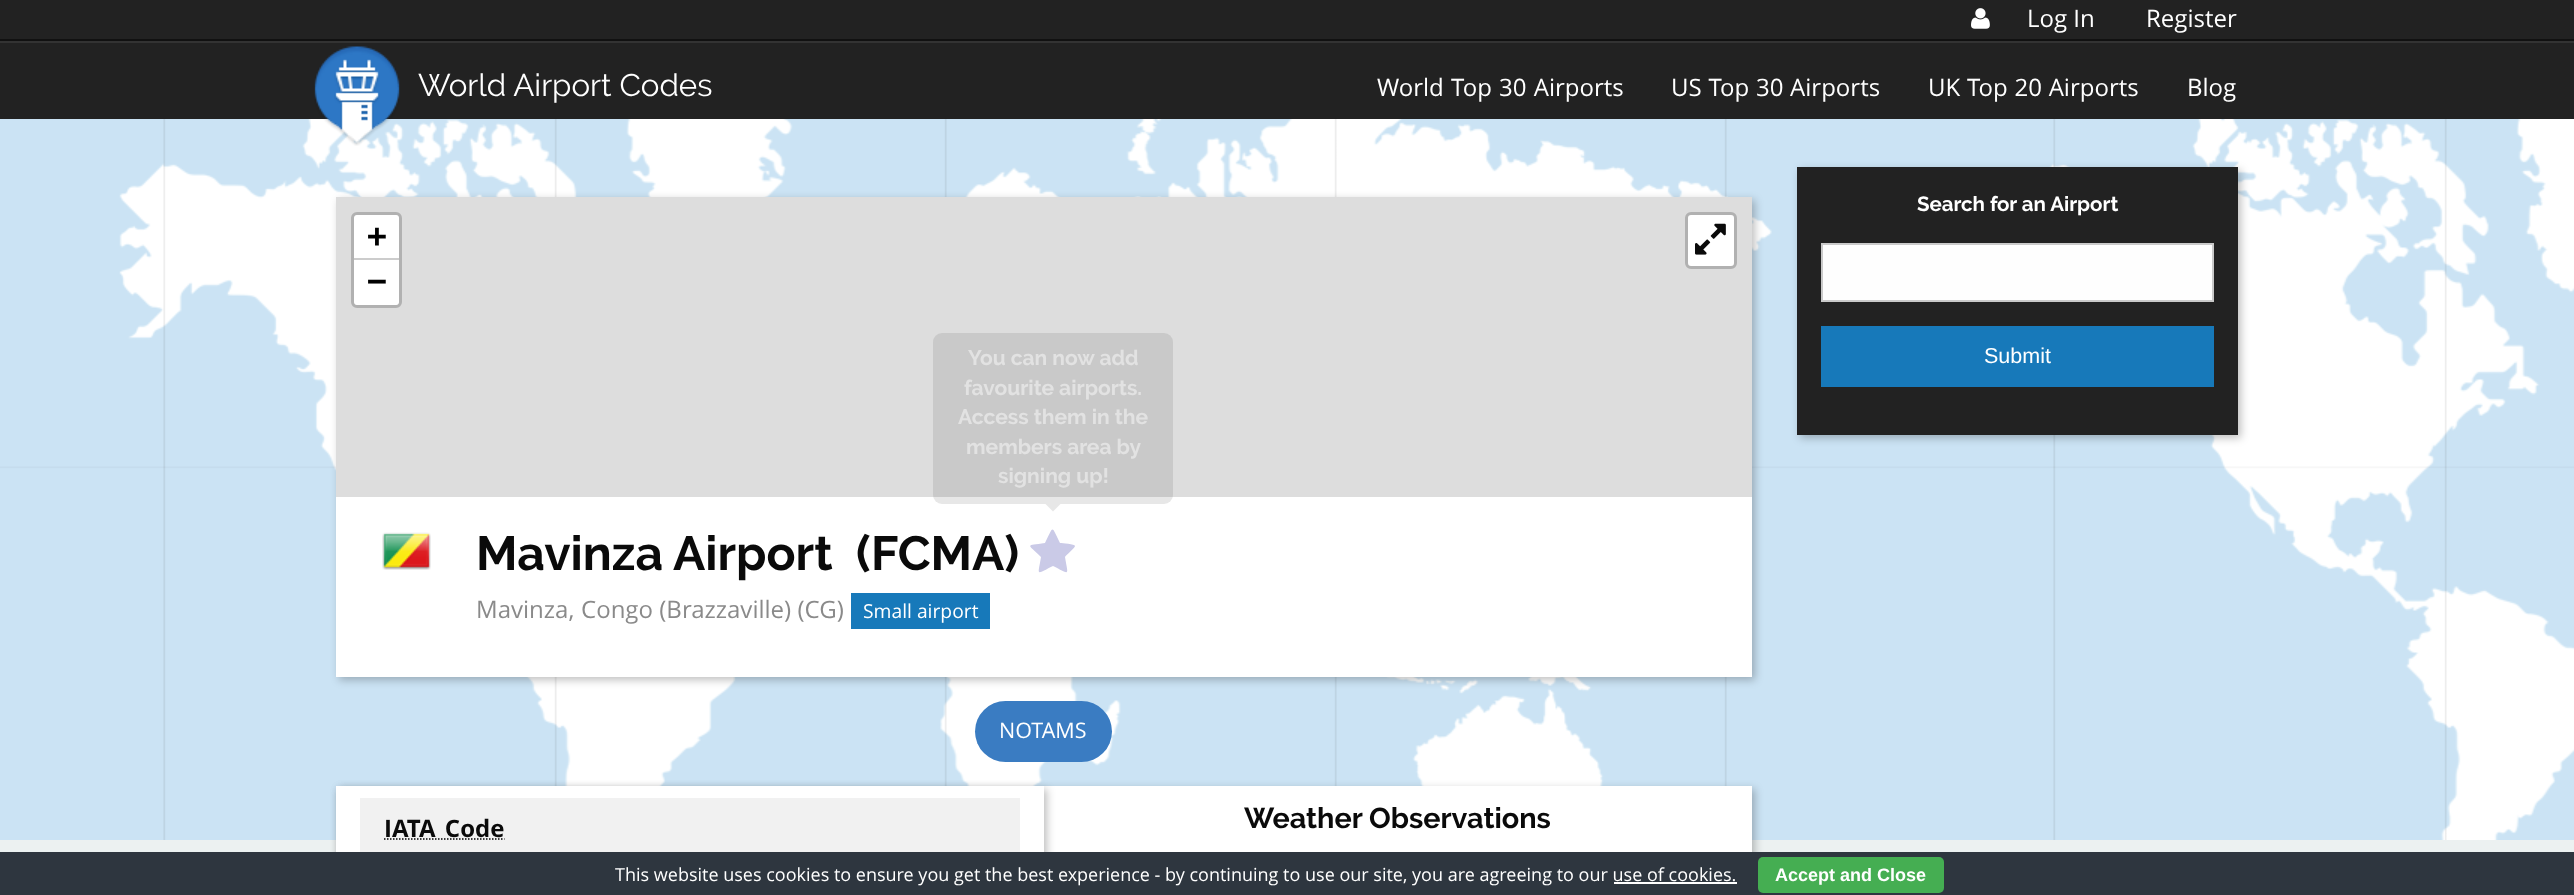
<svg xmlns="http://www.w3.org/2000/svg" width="2574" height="895">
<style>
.a{font:24px Open Sans;fill:#fff}
.b{font:31.25px Raleway;fill:#fff}
.c{font:bold 33px DejaVu Sans Mono;fill:#000}
.d{font:bold 21px Raleway;fill:#e2e2e2}
.e{font:bold 48px Raleway;fill:#0a0a0a}
.f{font:24px Open Sans;fill:#8a8a8a}
.g{font:19.25px Open Sans;fill:#fff}
.h{font:21.5px Open Sans;fill:#fff}
.i{font:bold 24px Open Sans;fill:#0a0a0a}
.j{font:bold 28.75px Raleway;fill:#0a0a0a}
.k{font:bold 20.5px Raleway;fill:#fff}
.l{font:21.5px Liberation Sans;fill:#fff}
.m{font:18px Open Sans;fill:#fff}
.n{font:bold 18px Liberation Sans;fill:#fff}
</style>
<defs>
<clipPath id="clip1"><path d="M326 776h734v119h-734zm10 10h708v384h-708z" clip-rule="evenodd"/></clipPath>
</defs>
<rect width="100%" height="100%" fill="#ecf1f1"/>
<image href="1.png" x="0" y="119" width="2574" height="721"/>
<path fill="#222" d="M0 0h2574v39H0z"/>
<path fill="#111" d="M0 39h2574v2H0z"/>
<image href="2.png" x="1971" y="8" width="19" height="21"/>
<path fill="#222" d="M0 43h2574v76H0z"/>
<path fill="#333" d="M0 41h2574v2H0z"/>
<image href="3.png" x="314" y="46" width="86" height="100"/>
<path fill="#00000040" filter="blur(4px)" d="M339 200h1416v480H339z"/>
<path fill="#fff" d="M336 497h1416v180H336z"/>
<path fill="#ddd" d="M336 197h1416v300H336z"/>
<rect fill="none" stroke="#b1b1b1" stroke-width="3" x="352.5" y="213.5" width="48" height="93" rx="4.5"/>
<path fill="#fff" d="M357 215h39c1.5 0 3 1.5 3 3v42h-45v-42c0-1.5 1.5-3 3-3z"/>
<path fill="#ccc" d="M354 258h45v2H354z"/>
<path fill="#fff" d="M354 260h45v42c0 1.5-1.5 3-3 3h-39c-1.5 0-3-1.5-3-3z"/>
<rect fill="#fff" stroke="#b1b1b1" stroke-width="3" x="1686.5" y="213.5" width="49" height="54" rx="4.5"/>
<image href="4.png" x="1695" y="223" width="31" height="32"/>
<image href="5.png" x="382" y="532" width="49" height="38"/>
<rect fill="#55555524" x="933" y="333" width="240" height="171" rx="9"/>
<path fill="#e7e7e7" d="M1045.5 504h15l-7.5 7.5z"/>
<path fill="#cacae7" d="M1075 546c0 2-9 9-10 11c3 19 6 18-12 9c-18 9-15 10-12-9c-14-14-16-11 4-14c9-18 6-18 15 0c2 0 15 1 15 3z"/>
<path fill="#1779ba" d="M851 593h139v36H851z"/>
<rect fill="#3a7cc2" x="975" y="701" width="137" height="61" rx="30.5"/>
<path fill="#00000040" filter="blur(4px)" d="M339 789h1416v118H339z"/>
<path fill="#fff" d="M336 786h1416v66H336z"/>
<g clip-path="url(#clip1)">
<path fill="#00000040" filter="blur(4px)" d="M339 789h708v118H339z"/>
</g>
<path fill="#f1f1f1" d="M360 798h660v54H360z"/>
<path fill="none" stroke="#000" stroke-width="1.5" stroke-dasharray="1.5 1.5" d="M384 839h120.5"/>
<path fill="#00000040" filter="blur(4px)" d="M1800 170h441v268H1800z"/>
<path fill="#222" d="M1797 167h441v268H1797z"/>
<path fill="#fefefe" stroke="#cacaca" stroke-width="2" d="M1822 244h391v57H1822z"/>
<path fill="#1779ba" d="M1821 326h393v61H1821z"/>
<path fill="#2e363f" d="M0 852h2574v43H0z"/>
<rect fill="#45ae52" x="1758" y="857" width="186" height="36" rx="5"/>
<path fill="#fff" d="M1614 882h123v2H1614z"/>
<text class="a" x="2027" y="27">Log In</text>
<text class="a" x="2146" y="27">Register</text>
<text class="b" x="418" y="96">World Airport Codes</text>
<text class="a" x="1377" y="96" word-spacing="1">World Top 30 Airports</text>
<text class="a" x="1671" y="96" word-spacing="0.5">US Top 30 Airports</text>
<text class="a" x="1928" y="96" word-spacing="0.5">UK Top 20 Airports</text>
<text class="a" x="2187" y="96">Blog</text>
<text class="c" x="367" y="247">+</text>
<text class="c" x="367" y="292">−</text>
<text class="d" x="968" y="365">You can now add</text>
<text class="d" x="964" y="395">favourite airports.</text>
<text class="d" x="958" y="424">Access them in the</text>
<text class="d" x="966" y="454">members area by</text>
<text class="d" x="998" y="483">signing up!</text>
<text class="e" x="476" y="570">Mavinza Airport</text>
<text class="e" x="856" y="570">(FCMA)</text>
<text class="f" x="476" y="618">Mavinza,</text>
<text class="f" x="581" y="618">Congo (Brazzaville) (CG)</text>
<text class="g" x="863" y="618">Small airport</text>
<text class="h" x="999" y="738">NOTAMS</text>
<text class="i" x="384" y="837" word-spacing="3">IATA Code</text>
<text class="j" x="1244" y="828">Weather Observations</text>
<text class="k" x="1917" y="211">Search for an Airport</text>
<text class="l" x="1984" y="363">Submit</text>
<text class="m" x="615" y="881">This website uses cookies to ensure you get the best experience - by continuing to use our site, you are agreeing to our use of cookies.</text>
<text class="n" x="1775" y="881">Accept and Close</text>
</svg>
